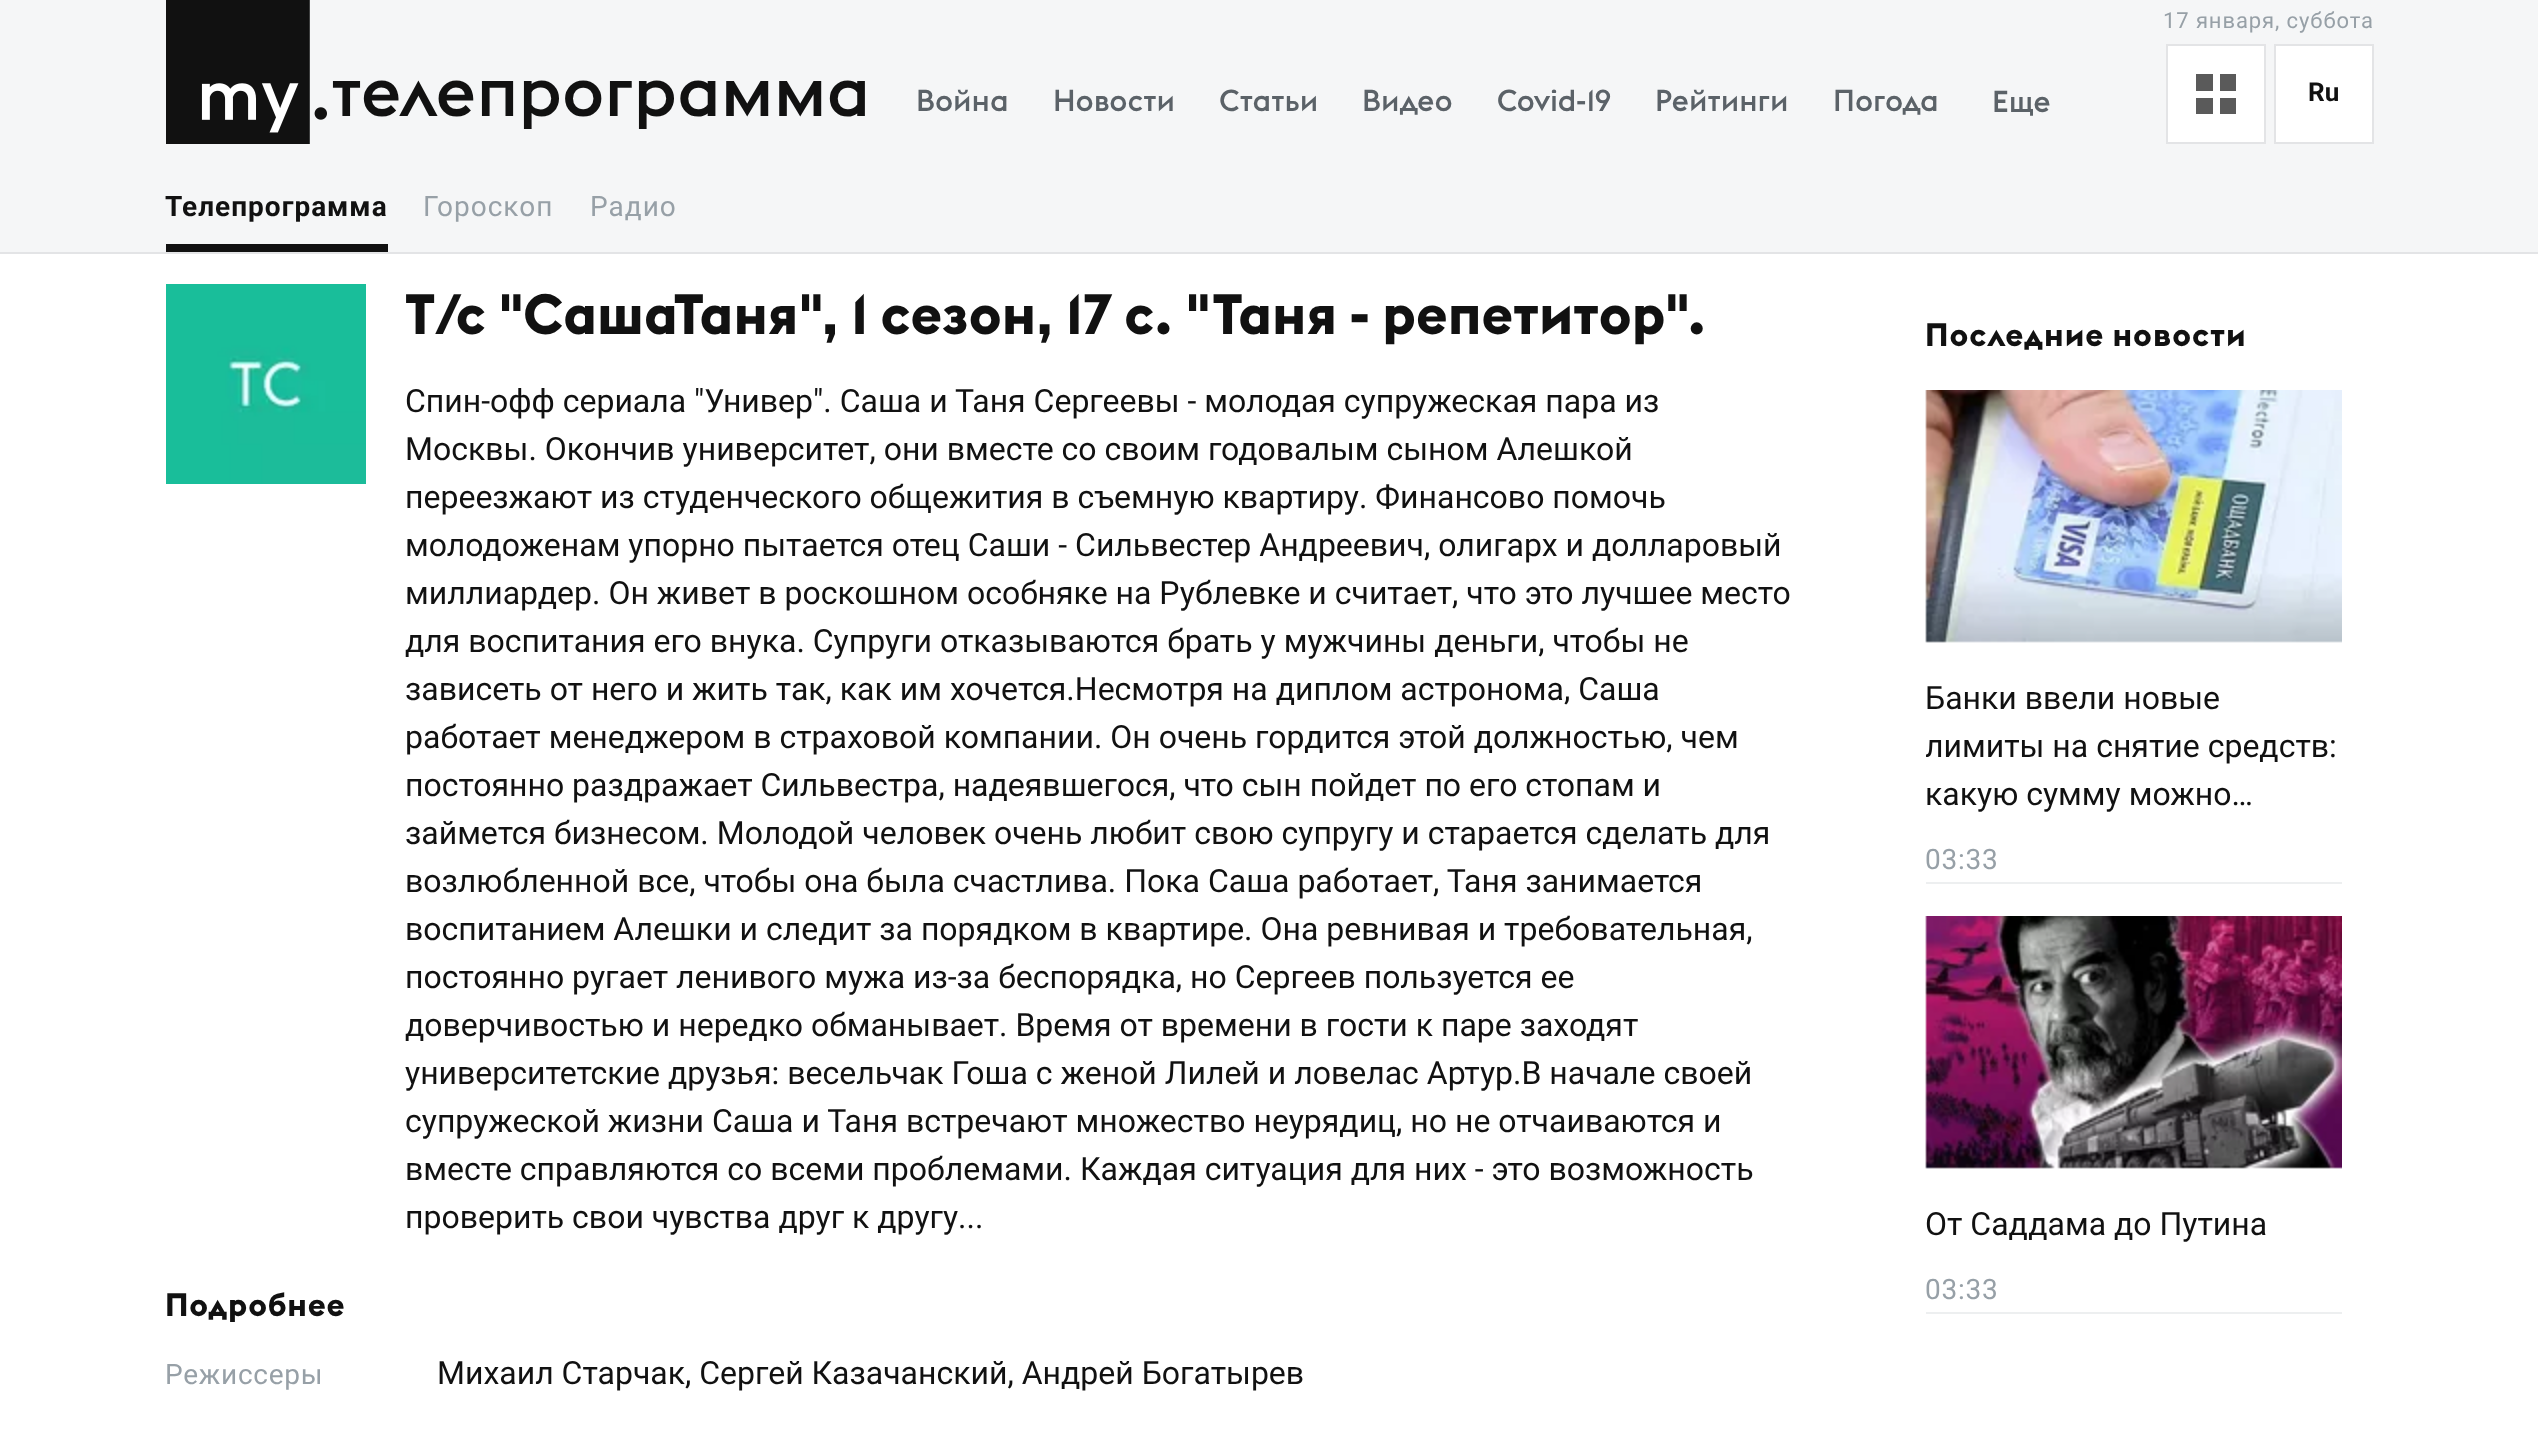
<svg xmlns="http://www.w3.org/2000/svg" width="2538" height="1439">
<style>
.a{font:500 70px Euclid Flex;fill:#111}
.b{font:500 30px Euclid Flex;fill:#5b6268}
.c{font:22px Roboto;letter-spacing:0.9px;fill:#97a0a7}
.d{font:bold 26px Roboto;fill:#111}
.e{font:bold 28px Roboto;letter-spacing:1px;fill:#111}
.f{font:28px Roboto;letter-spacing:1px;fill:#97a0a7}
.g{font:bold 56px Euclid Flex;fill:#111}
.h{font:32px Roboto;fill:#111}
.i{font:bold 32px Euclid Flex;letter-spacing:0.75px;fill:#111}
.j{font:28px Roboto;letter-spacing:0.75px;fill:#97a0a7}
.k{font:bold 32px Euclid Flex;letter-spacing:1px;fill:#111}
</style>
<defs>
<clipPath id="clip1"><path d="M1926 674h416v144H1926z"/></clipPath>
</defs>
<rect width="100%" height="100%" fill="#fff"/>
<path fill="#f5f6f7" d="M0 0h2538v252H0z"/>
<path fill="#e3e4e6" d="M0 252h2538v2H0z"/>
<image href="1.png" x="166" y="0" width="161" height="144"/>
<path fill="#fff" stroke="#e3e4e6" stroke-width="2" d="M2167 45h98v98H2167z"/>
<path fill="#5a5a5a" d="M2196 74h17v17H2196z"/>
<path fill="#5a5a5a" d="M2220 74h16v17H2220z"/>
<path fill="#5a5a5a" d="M2220 98h16v16H2220z"/>
<path fill="#5a5a5a" d="M2196 98h17v16H2196z"/>
<path fill="#fff" stroke="#e3e4e6" stroke-width="2" d="M2275 45h98v98H2275z"/>
<path fill="#111" d="M166 244h222v8H166z"/>
<image href="2.png" x="166" y="284" width="200" height="200"/>
<path fill="#edeff0" d="M1926 882h416v2H1926z"/>
<image href="3.png" x="1925" y="390" width="417" height="253"/>
<path fill="#edeff0" d="M1926 1312h416v2H1926z"/>
<image href="4.png" x="1925" y="916" width="417" height="253"/>
<text class="a" x="331" y="116">телепрограмма</text>
<text class="b" x="916" y="111">Война</text>
<text class="b" x="1053" y="111">Новости</text>
<text class="b" x="1219" y="111">Статьи</text>
<text class="b" x="1362" y="111">Видео</text>
<text class="b" x="1497" y="111">Covid-19</text>
<text class="b" x="1655" y="111">Рейтинги</text>
<text class="b" x="1833" y="111">Погода</text>
<text class="b" x="1992" y="112">Еще</text>
<text class="c" x="2163" y="28">17 января, суббота</text>
<text class="d" x="2308" y="101">Ru</text>
<text class="e" x="165" y="216">Телепрограмма</text>
<text class="f" x="423" y="216">Гороскоп</text>
<text class="f" x="590" y="216">Радио</text>
<text class="g" x="405" y="334">Т/с "СашаТаня", 1 сезон, 17 с. "Таня - репетитор".</text>
<text class="h" x="405" y="412">Спин-офф сериала "Универ". Саша и Таня Сергеевы - молодая супружеская пара из</text>
<text class="h" x="405" y="460">Москвы. Окончив университет, они вместе со своим годовалым сыном Алешкой</text>
<text class="h" x="405" y="508">переезжают из студенческого общежития в съемную квартиру. Финансово помочь</text>
<text class="h" x="405" y="556">молодоженам упорно пытается отец Саши - Сильвестер Андреевич, олигарх и долларовый</text>
<text class="h" x="405" y="604">миллиардер. Он живет в роскошном особняке на Рублевке и считает, что это лучшее место</text>
<text class="h" x="405" y="652">для воспитания его внука. Супруги отказываются брать у мужчины деньги, чтобы не</text>
<text class="h" x="405" y="700">зависеть от него и жить так, как им хочется.Несмотря на диплом астронома, Саша</text>
<text class="h" x="405" y="748">работает менеджером в страховой компании. Он очень гордится этой должностью, чем</text>
<text class="h" x="405" y="796">постоянно раздражает Сильвестра, надеявшегося, что сын пойдет по его стопам и</text>
<text class="h" x="405" y="844">займется бизнесом. Молодой человек очень любит свою супругу и старается сделать для</text>
<text class="h" x="405" y="892">возлюбленной все, чтобы она была счастлива. Пока Саша работает, Таня занимается</text>
<text class="h" x="405" y="940">воспитанием Алешки и следит за порядком в квартире. Она ревнивая и требовательная,</text>
<text class="h" x="405" y="988">постоянно ругает ленивого мужа из-за беспорядка, но Сергеев пользуется ее</text>
<text class="h" x="405" y="1036">доверчивостью и нередко обманывает. Время от времени в гости к паре заходят</text>
<text class="h" x="405" y="1084">университетские друзья: весельчак Гоша с женой Лилей и ловелас Артур.В начале своей</text>
<text class="h" x="405" y="1132">супружеской жизни Саша и Таня встречают множество неурядиц, но не отчаиваются и</text>
<text class="h" x="405" y="1180">вместе справляются со всеми проблемами. Каждая ситуация для них - это возможность</text>
<text class="h" x="405" y="1228">проверить свои чувства друг к другу...</text>
<text class="i" x="165" y="1316">Подробнее</text>
<text class="j" x="165" y="1384">Режиссеры</text>
<text class="h" x="437" y="1384">Михаил Старчак, Сергей Казачанский, Андрей Богатырев</text>
<text class="k" x="1925" y="346">Последние новости</text>
<text class="h" x="1925" y="709">Банки ввели новые</text>
<g clip-path="url(#clip1)">
<text class="h" x="1925" y="757">лимиты на снятие средств:</text>
</g>
<text class="h" x="1925" y="805">какую сумму можно…</text>
<text class="j" x="1925" y="869">03:33</text>
<text class="h" x="1925" y="1235">От Саддама до Путина</text>
<text class="j" x="1925" y="1299">03:33</text>
</svg>
